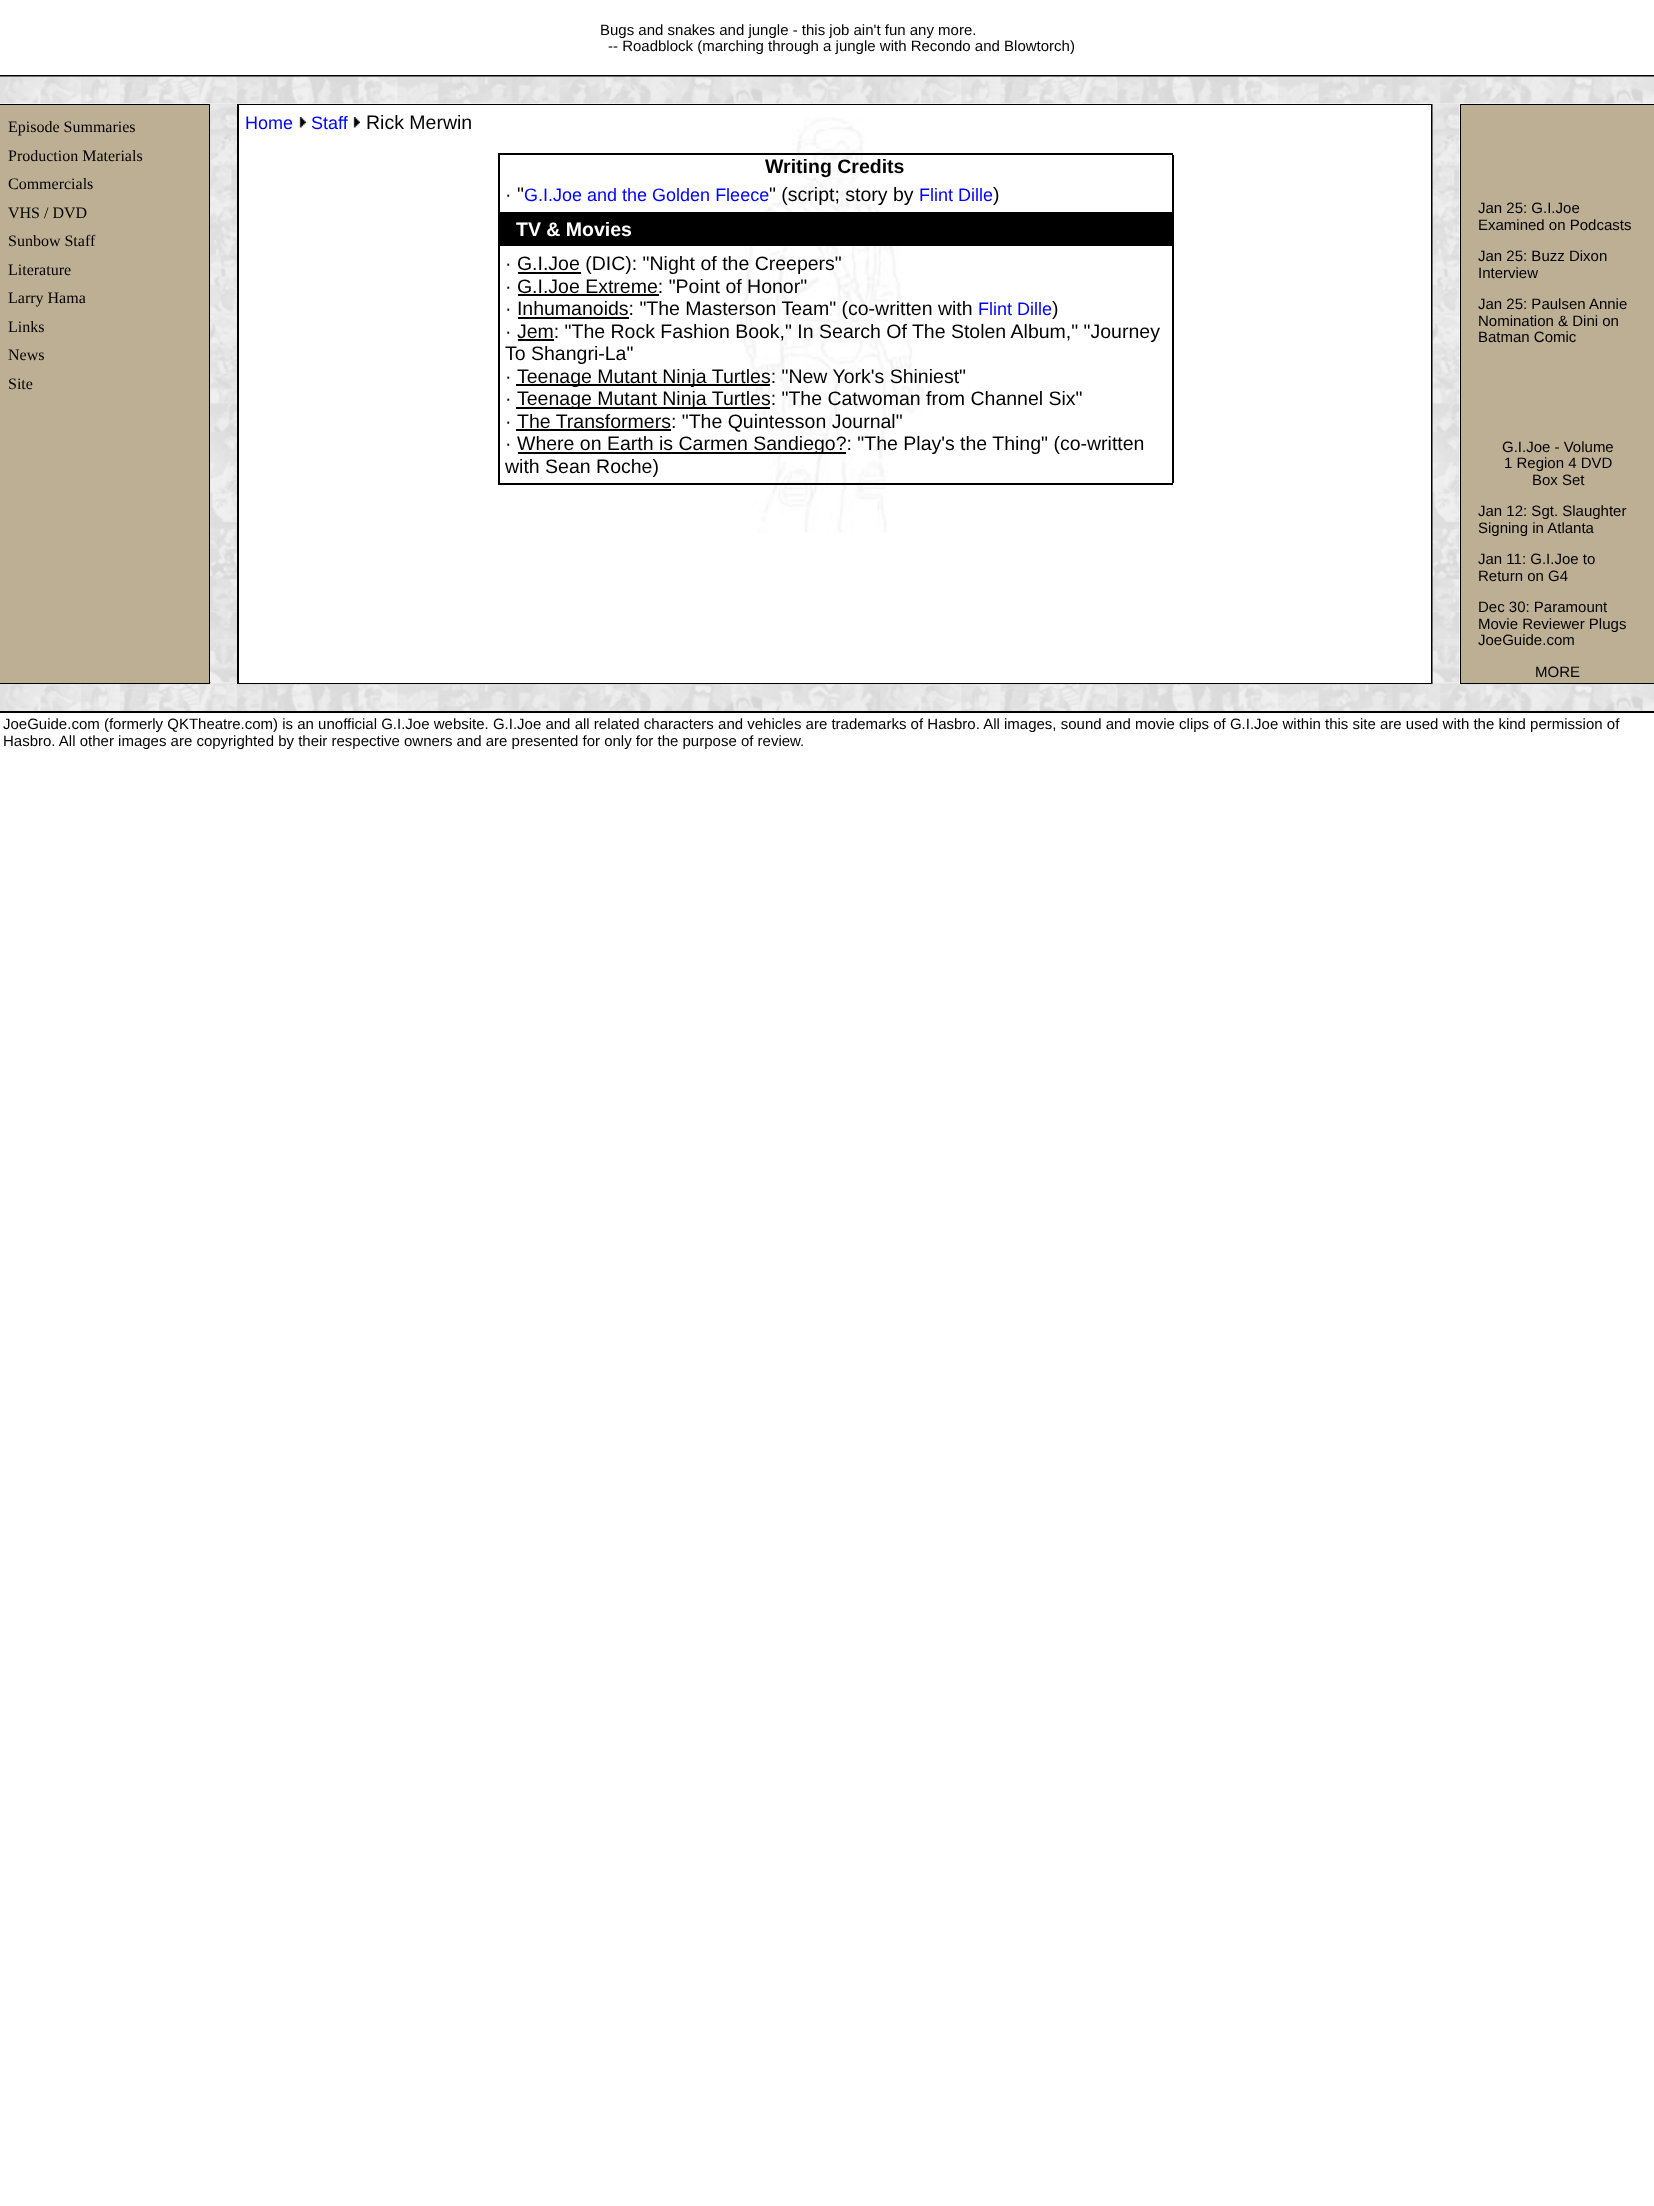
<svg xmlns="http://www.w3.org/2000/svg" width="1654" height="2206">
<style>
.a{font:15px Liberation Sans;fill:#000}
.b{font:18px Liberation Sans;fill:#00f}
.c{font:19.5px Liberation Sans;fill:#000}
.d{font:bold 19.5px Liberation Sans;fill:#000}
.e{font:bold 19.5px Liberation Sans;fill:#fff}
.f{font:16px Liberation Serif;fill:#000}
</style>
<rect width="100%" height="100%" fill="#fff"/>
<path fill="#000" d="M0 75h1654v2H0z"/>
<image href="1.png" x="0" y="76" width="1654" height="28"/>
<path fill="#000" d="M0 104h211v1H0z"/>
<image href="2.png" x="210" y="103" width="27" height="2"/>
<path fill="#000" d="M237 104h1196v1H237z"/>
<image href="3.png" x="1432" y="103" width="28" height="2"/>
<path fill="#000" d="M1460 104h194v1H1460z"/>
<path fill="#bdaf93" d="M0 105h209v578H0z"/>
<path fill="#000" d="M209 105h2v578H209z"/>
<image href="4.png" x="210" y="105" width="27" height="578"/>
<path fill="#000" d="M237 105h2v579H237z"/>
<path fill="#000" d="M1431 105h2v578H1431z"/>
<image href="5.png" x="740" y="117" width="184" height="416"/>
<image href="6.png" x="299" y="117" width="7" height="11"/>
<image href="6.png" x="353" y="117" width="7" height="11"/>
<path fill="#000" d="M498 153h675v2H498z"/>
<path fill="#000" d="M498 155h2v328H498z"/>
<path fill="#000" d="M1172 155h2v328H1172z"/>
<path fill="#000" d="M500 212h672v34H500z"/>
<path fill="#000" d="M518 272h63v2H518z"/>
<path fill="#000" d="M518 294h141v2H518z"/>
<path fill="#000" d="M518 317h111v2H518z"/>
<path fill="#000" d="M518 339h36v2H518z"/>
<path fill="#000" d="M516 384h254v2H516z"/>
<path fill="#000" d="M516 407h254v2H516z"/>
<path fill="#000" d="M516 429h155v2H516z"/>
<path fill="#000" d="M518 452h328v2H518z"/>
<path fill="#000" d="M498 483h675v2H498z"/>
<image href="7.png" x="1432" y="105" width="28" height="578"/>
<path fill="#000" d="M1460 105h1v578H1460z"/>
<path fill="#bdaf93" d="M1461 105h193v578H1461z"/>
<path fill="#000" d="M0 683h211v1H0z"/>
<image href="8.png" x="210" y="682" width="27" height="2"/>
<path fill="#000" d="M239 683h1194v1H239z"/>
<image href="9.png" x="1432" y="682" width="28" height="2"/>
<path fill="#000" d="M1460 683h194v1H1460z"/>
<image href="10.png" x="0" y="684" width="1654" height="27"/>
<path fill="#000" d="M0 711h1654v2H0z"/>
<text class="a" x="600" y="35">Bugs and snakes and jungle - this job ain't fun any more.</text>
<text class="a" x="608" y="51">-- Roadblock (marching through a jungle with Recondo and Blowtorch)</text>
<text class="b" x="245" y="129">Home</text>
<text class="b" x="311" y="129">Staff</text>
<text class="c" x="366" y="129">Rick Merwin</text>
<text class="d" x="765" y="173">Writing Credits</text>
<text class="c" x="505" y="201">· "</text>
<text class="b" x="524" y="201">G.I.Joe and the Golden Fleece</text>
<text class="c" x="769" y="201">" (script; story by</text>
<text class="b" x="919" y="201">Flint Dille</text>
<text class="c" x="993" y="201">)</text>
<text class="e" x="516" y="236">TV &amp; Movies</text>
<text class="c" x="505" y="270">· G.I.Joe (DIC): "Night of the Creepers"</text>
<text class="c" x="505" y="293">· G.I.Joe Extreme: "Point of Honor"</text>
<text class="c" x="505" y="315">· Inhumanoids: "The Masterson Team" (co-written with</text>
<text class="b" x="978" y="315">Flint Dille</text>
<text class="c" x="1052" y="315">)</text>
<text class="c" x="505" y="338">· Jem: "The Rock Fashion Book," In Search Of The Stolen Album," "Journey</text>
<text class="c" x="505" y="360">To Shangri-La"</text>
<text class="c" x="505" y="383">·</text>
<text class="c" x="517" y="383">Teenage Mutant Ninja Turtles: "New York's Shiniest"</text>
<text class="c" x="505" y="405">·</text>
<text class="c" x="517" y="405">Teenage Mutant Ninja Turtles: "The Catwoman from Channel Six"</text>
<text class="c" x="505" y="428">·</text>
<text class="c" x="517" y="428">The Transformers: "The Quintesson Journal"</text>
<text class="c" x="505" y="450">·</text>
<text class="c" x="517" y="450">Where on Earth is Carmen Sandiego?: "The Play's the Thing" (co-written</text>
<text class="c" x="505" y="473">with Sean Roche)</text>
<text class="a" x="1478" y="213">Jan 25: G.I.Joe</text>
<text class="a" x="1478" y="230">Examined on Podcasts</text>
<text class="a" x="1478" y="261">Jan 25: Buzz Dixon</text>
<text class="a" x="1478" y="278">Interview</text>
<text class="a" x="1478" y="309">Jan 25: Paulsen Annie</text>
<text class="a" x="1478" y="326">Nomination &amp; Dini on</text>
<text class="a" x="1478" y="342">Batman Comic</text>
<text class="a" x="1502" y="452">G.I.Joe - Volume</text>
<text class="a" x="1504" y="468">1 Region 4 DVD</text>
<text class="a" x="1532" y="485">Box Set</text>
<text class="a" x="1478" y="516">Jan 12: Sgt. Slaughter</text>
<text class="a" x="1478" y="533">Signing in Atlanta</text>
<text class="a" x="1478" y="564">Jan 11: G.I.Joe to</text>
<text class="a" x="1478" y="581">Return on G4</text>
<text class="a" x="1478" y="612">Dec 30: Paramount</text>
<text class="a" x="1478" y="629">Movie Reviewer Plugs</text>
<text class="a" x="1478" y="645">JoeGuide.com</text>
<text class="a" x="1535" y="677">MORE</text>
<text class="a" x="3" y="729">JoeGuide.com (formerly QKTheatre.com) is an unofficial G.I.Joe website. G.I.Joe and all related characters and vehicles are trademarks of Hasbro. All images, sound and movie clips of G.I.Joe within this site are used with the kind permission of</text>
<text class="a" x="3" y="746">Hasbro. All other images are copyrighted by their respective owners and are presented for only for the purpose of review.</text>
<text class="f" x="8" y="132">Episode Summaries</text>
<text class="f" x="8" y="161">Production Materials</text>
<text class="f" x="8" y="189">Commercials</text>
<text class="f" x="8" y="218">VHS / DVD</text>
<text class="f" x="8" y="246">Sunbow Staff</text>
<text class="f" x="8" y="275">Literature</text>
<text class="f" x="8" y="303">Larry Hama</text>
<text class="f" x="8" y="332">Links</text>
<text class="f" x="8" y="360">News</text>
<text class="f" x="8" y="389">Site</text>
</svg>
